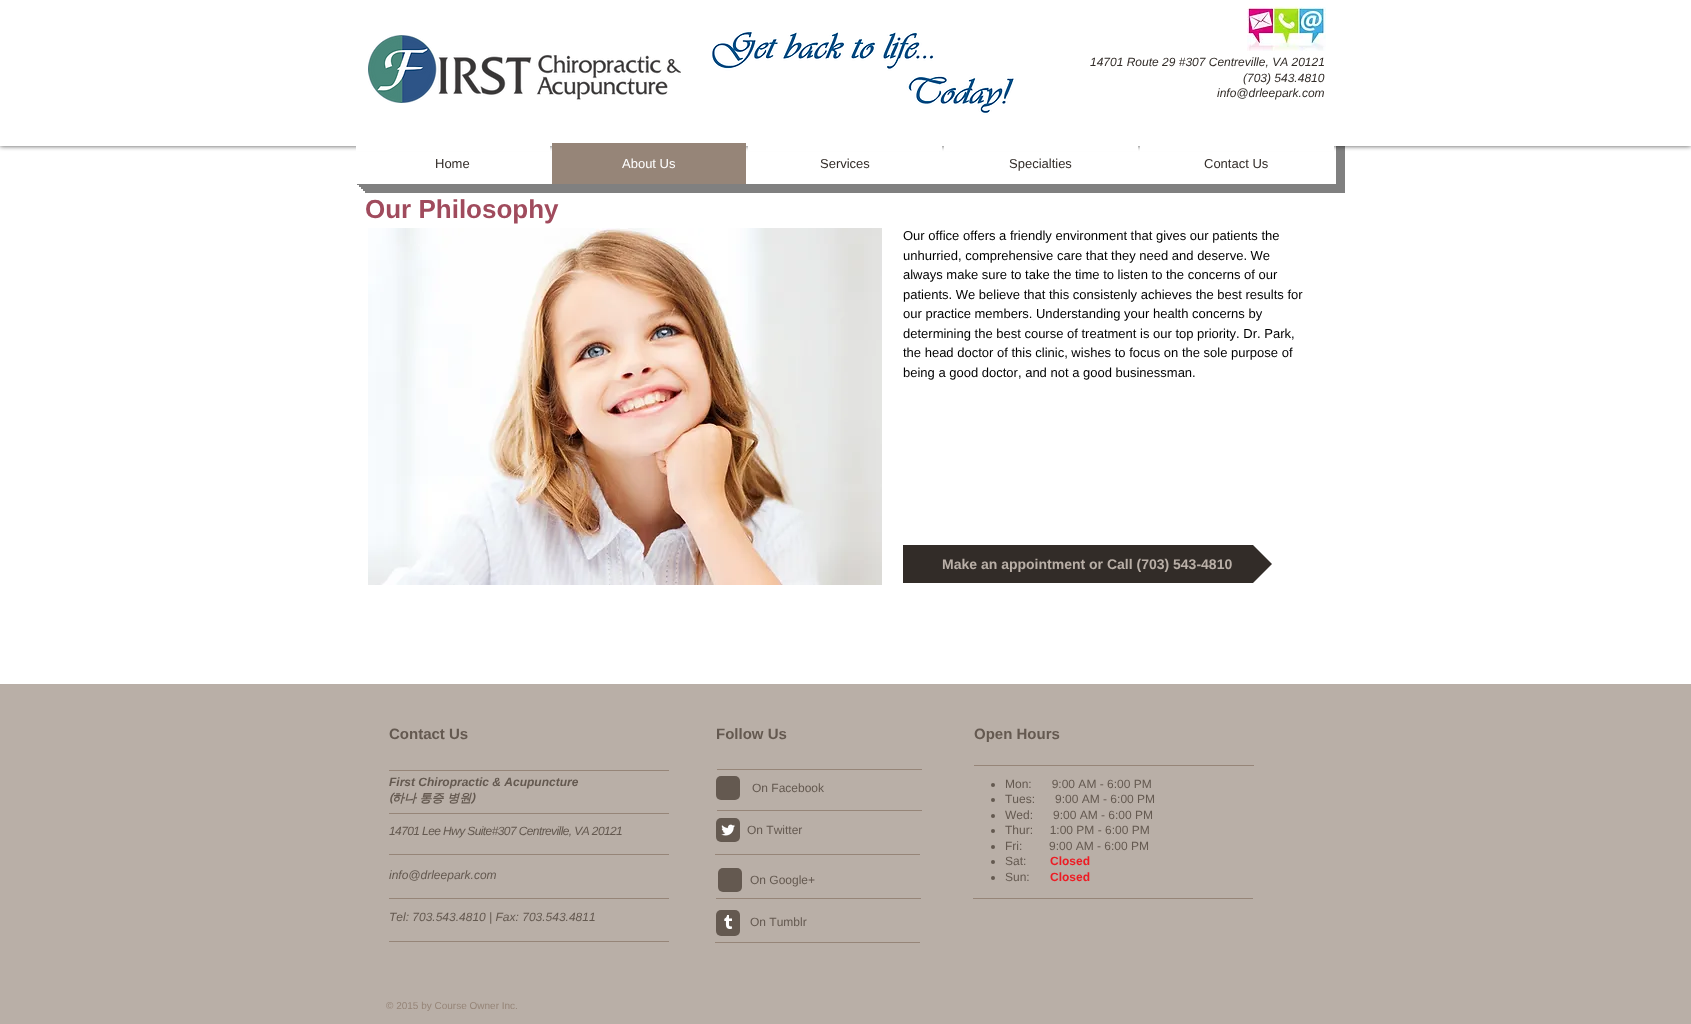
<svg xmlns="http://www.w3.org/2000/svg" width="1691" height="1024">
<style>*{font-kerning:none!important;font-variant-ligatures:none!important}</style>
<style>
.a{font:italic 12px Liberation Sans;fill:#322c28}
.b{font:13px Liberation Sans;fill:#322c28}
.c{font:13px Liberation Sans;fill:#fff}
.d{font:bold 26px Liberation Sans;fill:#a04b5d}
.e{font:13px Liberation Sans;fill:#000}
.f{font:bold 14px Liberation Sans;fill:#b9afa7}
.g{font:bold 15px Liberation Sans;fill:#645950}
.h{font:italic bold 12px Liberation Sans;fill:#645950}
.i{font:italic bold 12px Basic;fill:#645950}
.j{font:italic bold 12px WenQuanYi Zen Hei;fill:#645950}
.k{font:12px Liberation Sans;fill:#645950}
.l{font:bold 12px Liberation Sans;fill:#ed1c24}
.m{font:italic 12px Liberation Sans;letter-spacing:-0.6px;fill:#645950}
.n{font:italic 12px Liberation Sans;fill:#645950}
.o{font:10px Liberation Sans;fill:#968578}
</style>
<defs>
<clipPath id="clip1"><path d="M903 545h369v38H903z"/></clipPath>
</defs>
<rect width="100%" height="100%" fill="#fff"/>
<path fill="#808080" d="M365 184v9h980v-193h-9v184z"/>
<path fill="#808080" d="M363 184v7h980v-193h-7v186z"/>
<path fill="#808080" d="M361 184v5h980v-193h-5v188z"/>
<path fill="#808080" d="M359 184v3h980v-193h-3v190z"/>
<path fill="#808080" d="M357 184v1h980v-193h-1v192z"/>
<path fill="#000000b3" filter="blur(2.5px)" d="M0 -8h1691v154H0z"/>
<path fill="#fff" d="M0 0h1691v146H0z"/>
<image href="1.png" x="368" y="35" width="313" height="68"/>
<image href="2.png" x="712" y="30" width="304" height="85"/>
<image href="3.png" x="1247" y="6" width="79" height="45"/>
<path fill="#fff" d="M356 146h194v5H356z"/>
<path fill="#968578" d="M552 143h194v41H552z"/>
<path fill="#fff" d="M748 146h194v5H748z"/>
<path fill="#fff" d="M944 146h194v5H944z"/>
<path fill="#fff" d="M1140 146h194v5H1140z"/>
<image href="4.png" x="368" y="228" width="514" height="357"/>
<path fill="#322c28" d="M903 545h319v38H903z"/>
<g clip-path="url(#clip1)">
<path fill="#322c28" d="M1272 564h-50v-50zm-50 0h50l-50 50z"/>
</g>
<path fill="#b9afa7" d="M0 684h1691v340H0z"/>
<path fill="#968578" d="M974 765h280v1H974z"/>
<path fill="#968578" d="M717 769h205v1H717z"/>
<path fill="#968578" d="M389 770h280v1H389z"/>
<rect fill="#645950" x="716" y="776" width="24" height="24" rx="5"/>
<circle fill="#645950" cx="993" cy="785" r="2"/>
<circle fill="#645950" cx="993" cy="800" r="2"/>
<circle fill="#645950" cx="993" cy="816" r="2"/>
<circle fill="#645950" cx="993" cy="831" r="2"/>
<circle fill="#645950" cx="993" cy="847" r="2"/>
<circle fill="#645950" cx="993" cy="862" r="2"/>
<circle fill="#645950" cx="993" cy="878" r="2"/>
<path fill="#968578" d="M717 810h205v1H717z"/>
<path fill="#968578" d="M389 813h280v1H389z"/>
<rect fill="#645950" x="716" y="818" width="24" height="24" rx="5"/>
<image href="5.png" x="721" y="824" width="14" height="12"/>
<path fill="#968578" d="M389 854h280v1H389z"/>
<path fill="#968578" d="M715 854h205v1H715z"/>
<rect fill="#645950" x="718" y="868" width="24" height="24" rx="5"/>
<path fill="#968578" d="M389 898h280v1H389z"/>
<path fill="#968578" d="M716 898h205v1H716z"/>
<path fill="#968578" d="M973 898h280v1H973z"/>
<rect fill="#645950" x="716" y="910" width="24" height="26" rx="5"/>
<image href="6.png" x="724" y="915" width="9" height="14"/>
<path fill="#968578" d="M389 941h280v1H389z"/>
<path fill="#968578" d="M715 942h205v1H715z"/>
<text class="a" x="1090" y="66">14701 Route 29 #307 Centreville, VA 20121</text>
<text class="a" x="1243" y="82">(703) 543.4810</text>
<text class="a" x="1217" y="97">info@drleepark.com</text>
<text class="b" x="435" y="168">Home</text>
<text class="c" x="622" y="168">About Us</text>
<text class="b" x="820" y="168">Services</text>
<text class="b" x="1009" y="168">Specialties</text>
<text class="b" x="1204" y="168">Contact Us</text>
<text class="d" x="365" y="218">Our Philosophy</text>
<text class="e" x="903" y="240">Our office offers a friendly environment that gives our patients the</text>
<text class="e" x="903" y="260">unhurried, comprehensive care that they need and deserve. We</text>
<text class="e" x="903" y="279">always make sure to take the time to listen to the concerns of our</text>
<text class="e" x="903" y="299">patients. We believe that this consistenly achieves the best results for</text>
<text class="e" x="903" y="318">our practice members. Understanding your health concerns by</text>
<text class="e" x="903" y="338">determining the best course of treatment is our top priority. Dr. Park,</text>
<text class="e" x="903" y="357">the head doctor of this clinic, wishes to focus on the sole purpose of</text>
<text class="e" x="903" y="377">being a good doctor, and not a good businessman.</text>
<text class="f" x="942" y="569">Make an appointment or Call (703) 543-4810</text>
<text class="g" x="389" y="739">Contact Us</text>
<text class="g" x="716" y="739">Follow Us</text>
<text class="g" x="974" y="739">Open Hours</text>
<text class="h" x="389" y="786">First Chiropractic &amp; Acupuncture</text>
<text class="i" x="389" y="802">(</text>
<text class="j" x="392" y="802">하나 통증 병원</text>
<text class="i" x="471" y="802">)</text>
<text class="k" x="752" y="792">On Facebook</text>
<text class="k" xml:space="preserve" x="1005" y="788">Mon:      9:00 AM - 6:00 PM</text>
<text class="k" xml:space="preserve" x="1005" y="803">Tues:      9:00 AM - 6:00 PM</text>
<text class="k" xml:space="preserve" x="1005" y="819">Wed:      9:00 AM - 6:00 PM</text>
<text class="k" xml:space="preserve" x="1005" y="834">Thur:     1:00 PM - 6:00 PM</text>
<text class="k" xml:space="preserve" x="1005" y="850">Fri:        9:00 AM - 6:00 PM</text>
<text class="k" x="1005" y="865">Sat:</text>
<text class="l" x="1050" y="865">Closed</text>
<text class="k" x="1005" y="881">Sun:</text>
<text class="l" x="1050" y="881">Closed</text>
<text class="m" x="389" y="835">14701 Lee Hwy Suite#307 Centreville, VA 20121</text>
<text class="k" x="747" y="834">On Twitter</text>
<text class="n" x="389" y="879">info@drleepark.com</text>
<text class="k" x="750" y="884">On Google+</text>
<text class="n" x="389" y="921">Tel: 703.543.4810 | Fax: 703.543.4811</text>
<text class="k" x="750" y="926">On Tumblr</text>
<text class="o" x="386" y="1009">© 2015 by Course Owner Inc.</text>
</svg>
